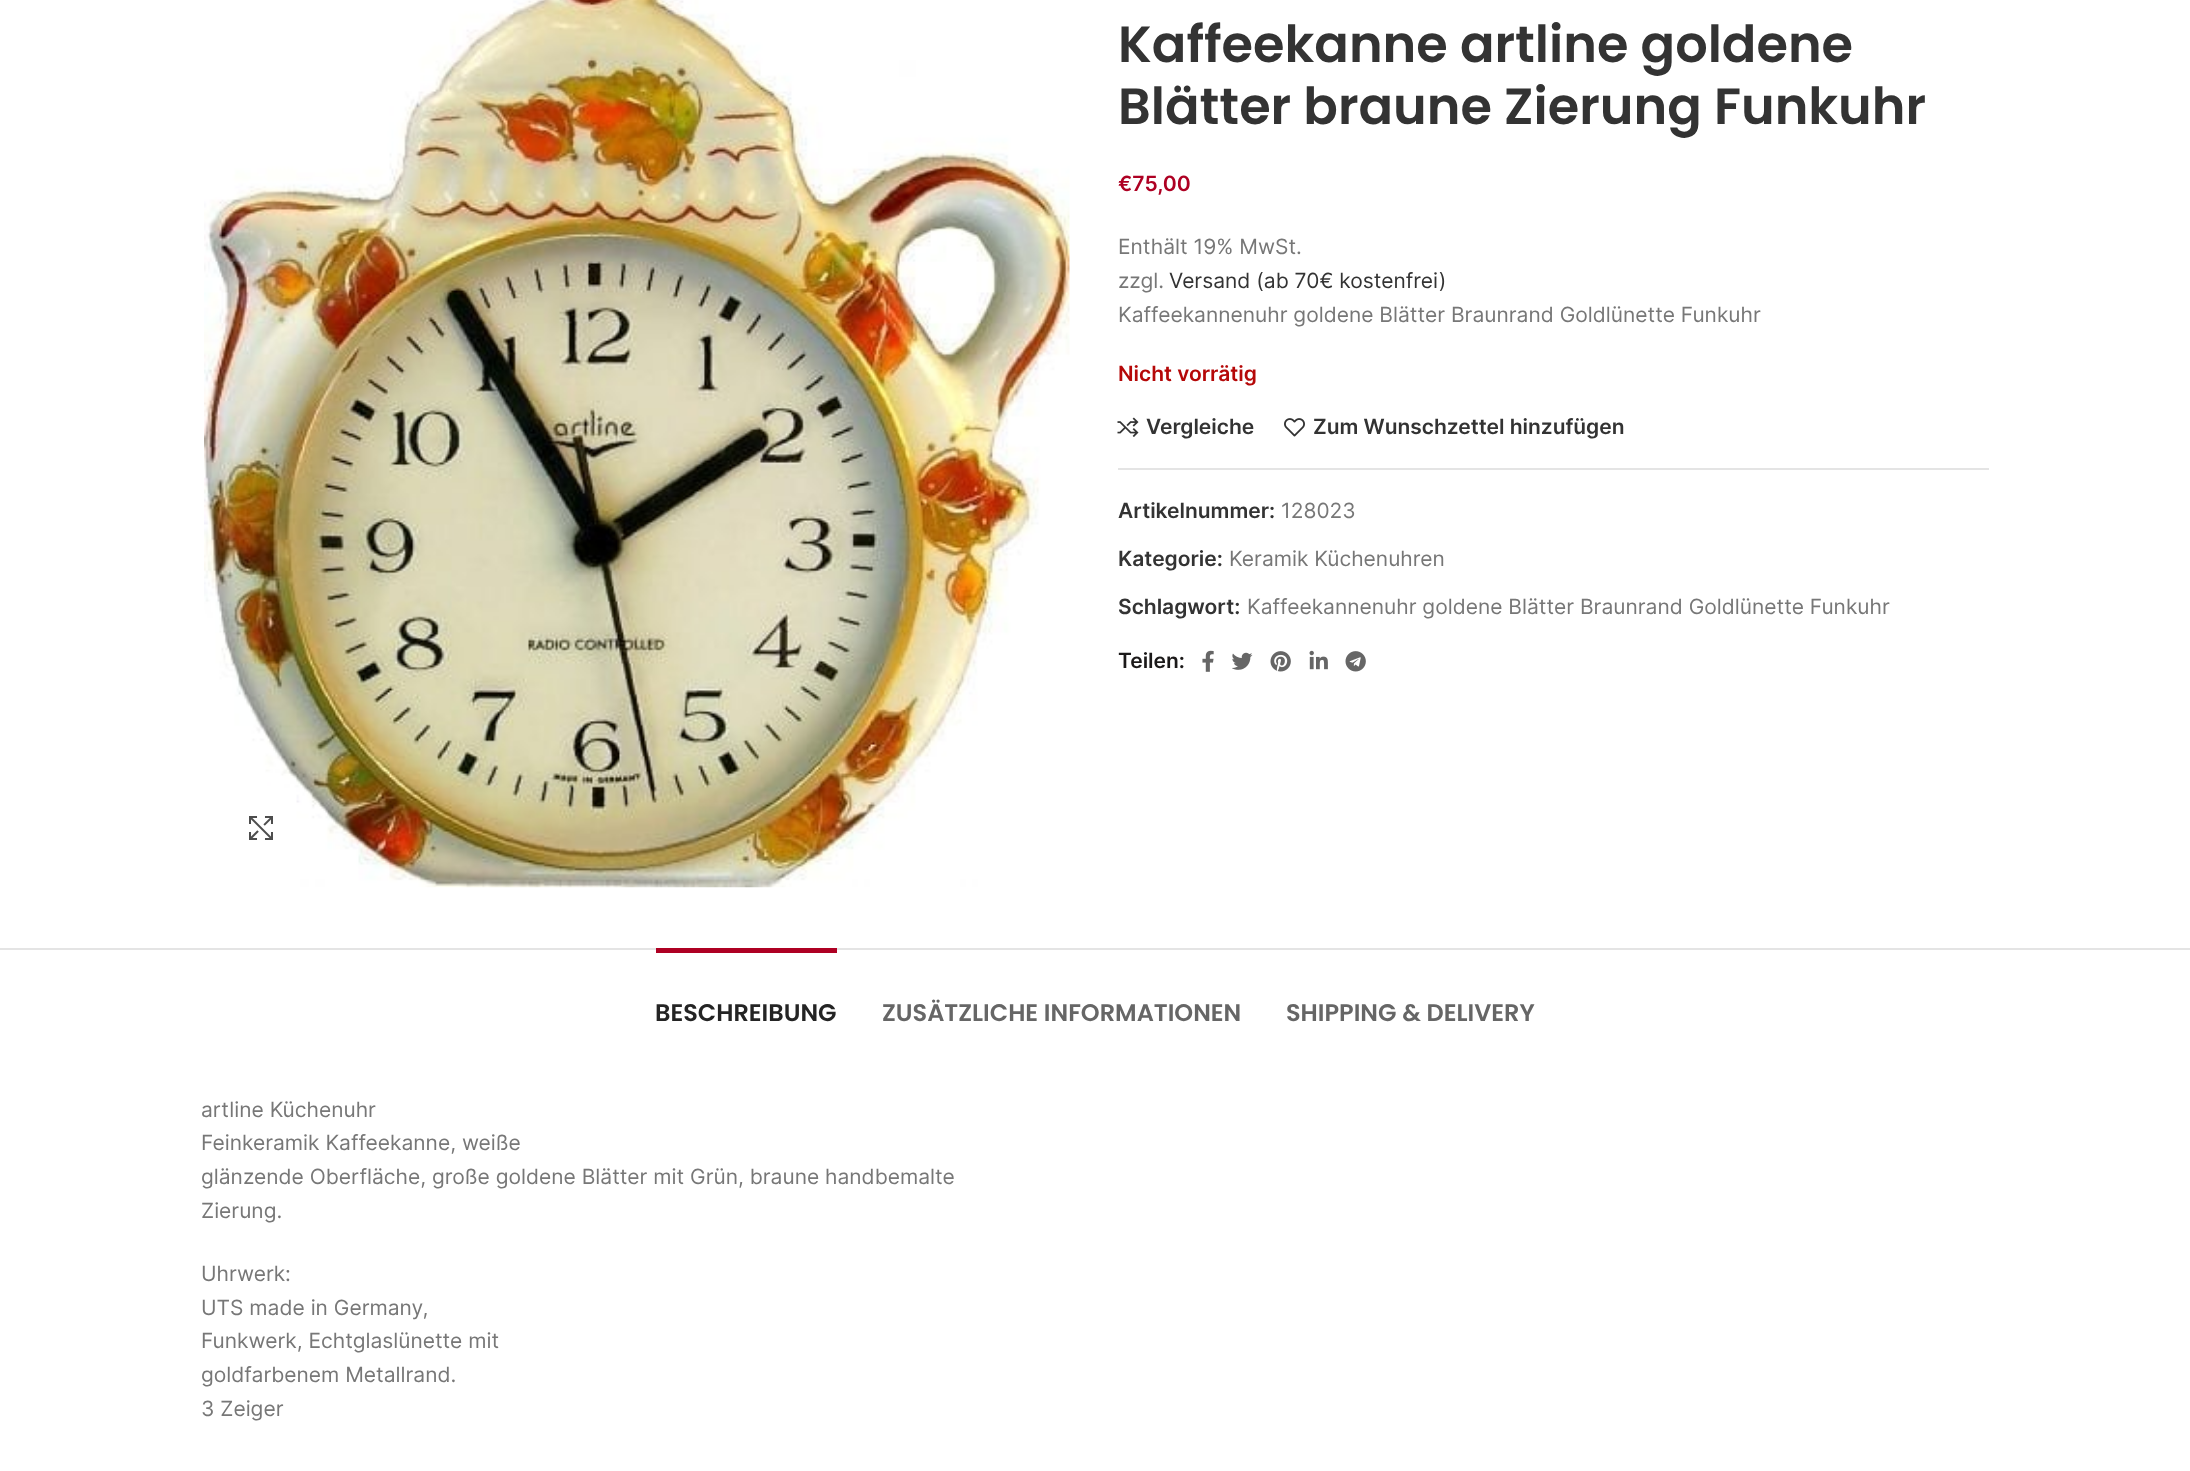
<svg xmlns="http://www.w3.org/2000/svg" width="2190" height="1471">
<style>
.a{font:600 51px Poppins;fill:#333}
.b{font:600 21px Inter;fill:#ae0023}
.c{font:21px Inter;fill:#777}
.d{font:21px Inter;fill:#333}
.e{font:600 21px Inter;fill:#b50808}
.f{font:600 21px Inter;fill:#333}
.g{font:600 21px Inter;fill:#1b1919}
.h{font:600 24px Poppins;fill:#242424}
.i{font:600 24px Poppins;fill:#666}
</style>
<rect width="100%" height="100%" fill="#fff"/>
<image href="1.png" x="204" y="0" width="866" height="888"/>
<image href="2.png" x="249" y="816" width="24" height="24"/>
<image href="3.png" x="1117" y="417" width="22" height="20"/>
<image href="4.png" x="1284" y="418" width="21" height="19"/>
<path fill="#e4e4e4" d="M1118 468h871v2H1118z"/>
<image href="5.png" x="1202" y="650" width="12" height="22"/>
<image href="6.png" x="1232" y="652" width="21" height="18"/>
<image href="7.png" x="1270" y="651" width="21" height="21"/>
<image href="8.png" x="1309" y="650" width="19" height="20"/>
<image href="9.png" x="1345" y="651" width="21" height="21"/>
<path fill="#e4e4e4" d="M0 948h2190v2H0z"/>
<path fill="#ae0023" d="M656 948h181v5H656z"/>
<text class="a" x="1118" y="62">Kaffeekanne artline goldene</text>
<text class="a" x="1118" y="124">Blätter braune Zierung Funkuhr</text>
<text class="b" x="1118" y="191">€75,00</text>
<text class="c" x="1118" y="254">Enthält 19% MwSt.</text>
<text class="c" x="1118" y="288">zzgl.</text>
<text class="d" x="1169" y="288">Versand (ab 70€ kostenfrei)</text>
<text class="c" x="1118" y="322">Kaffeekannenuhr goldene Blätter Braunrand Goldlünette Funkuhr</text>
<text class="e" x="1118" y="381">Nicht vorrätig</text>
<text class="f" x="1146" y="434">Vergleiche</text>
<text class="f" x="1313" y="434">Zum Wunschzettel hinzufügen</text>
<text class="f" x="1118" y="518">Artikelnummer:</text>
<text class="c" x="1281" y="518">128023</text>
<text class="f" x="1118" y="566">Kategorie:</text>
<text class="c" x="1229" y="566">Keramik Küchenuhren</text>
<text class="f" x="1118" y="614">Schlagwort:</text>
<text class="c" x="1247" y="614">Kaffeekannenuhr goldene Blätter Braunrand Goldlünette Funkuhr</text>
<text class="g" x="1118" y="668">Teilen:</text>
<text class="h" x="655" y="1021">BESCHREIBUNG</text>
<text class="i" x="882" y="1021">ZUSÄTZLICHE INFORMATIONEN</text>
<text class="i" x="1286" y="1021">SHIPPING &amp; DELIVERY</text>
<text class="c" x="201" y="1117">artline Küchenuhr</text>
<text class="c" x="201" y="1150">Feinkeramik Kaffeekanne, weiße</text>
<text class="c" x="201" y="1184">glänzende Oberfläche, große goldene Blätter mit Grün, braune handbemalte</text>
<text class="c" x="201" y="1218">Zierung.</text>
<text class="c" x="201" y="1281">Uhrwerk:</text>
<text class="c" x="201" y="1315">UTS made in Germany,</text>
<text class="c" x="201" y="1348">Funkwerk, Echtglaslünette mit</text>
<text class="c" x="201" y="1382">goldfarbenem Metallrand.</text>
<text class="c" x="201" y="1416">3 Zeiger</text>
</svg>
